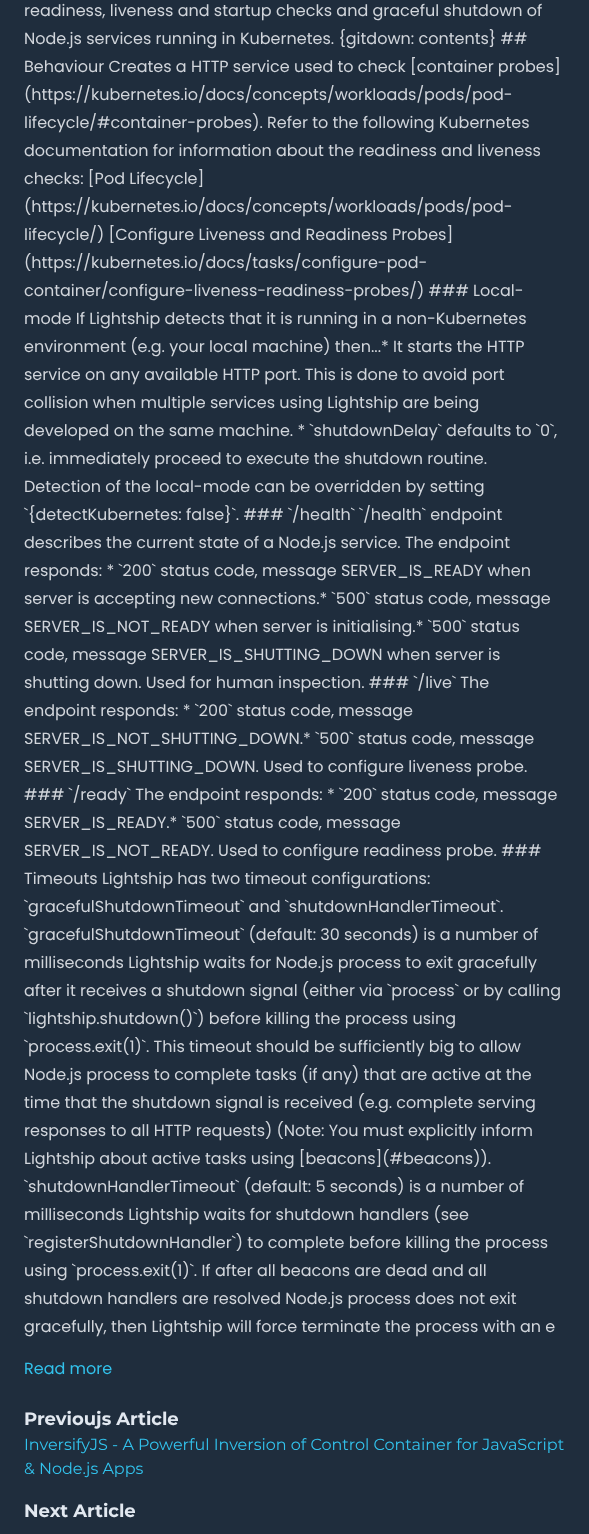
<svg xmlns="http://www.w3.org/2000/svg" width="589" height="1534">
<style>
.a{font:16px Poppins;fill:#d1d5db}
.b{font:16px Poppins;fill:#32c2ec}
.c{font:bold 18px Montserrat;fill:#e2e8f0}
.d{font:16px Montserrat;fill:#32c2ec}
</style>
<rect width="100%" height="100%" fill="#1f2d3d"/>
<text class="a" x="24" y="16">readiness, liveness and startup checks and graceful shutdown of</text>
<text class="a" x="24" y="44">Node.js services running in Kubernetes. {gitdown: contents} ##</text>
<text class="a" x="24" y="72">Behaviour Creates a HTTP service used to check [container probes]</text>
<text class="a" x="24" y="100">(https://kubernetes.io/docs/concepts/workloads/pods/pod-</text>
<text class="a" x="24" y="128">lifecycle/#container-probes). Refer to the following Kubernetes</text>
<text class="a" x="24" y="156">documentation for information about the readiness and liveness</text>
<text class="a" x="24" y="184">checks: [Pod Lifecycle]</text>
<text class="a" x="24" y="212">(https://kubernetes.io/docs/concepts/workloads/pods/pod-</text>
<text class="a" x="24" y="240">lifecycle/) [Configure Liveness and Readiness Probes]</text>
<text class="a" x="24" y="268">(https://kubernetes.io/docs/tasks/configure-pod-</text>
<text class="a" x="24" y="296">container/configure-liveness-readiness-probes/) ### Local-</text>
<text class="a" x="24" y="324">mode If Lightship detects that it is running in a non-Kubernetes</text>
<text class="a" x="24" y="352">environment (e.g. your local machine) then...* It starts the HTTP</text>
<text class="a" x="24" y="380">service on any available HTTP port. This is done to avoid port</text>
<text class="a" x="24" y="408">collision when multiple services using Lightship are being</text>
<text class="a" x="24" y="436">developed on the same machine. * `shutdownDelay` defaults to `0`,</text>
<text class="a" x="24" y="464">i.e. immediately proceed to execute the shutdown routine.</text>
<text class="a" x="24" y="492">Detection of the local-mode can be overridden by setting</text>
<text class="a" x="24" y="520">`{detectKubernetes: false}`. ### `/health` `/health` endpoint</text>
<text class="a" x="24" y="548">describes the current state of a Node.js service. The endpoint</text>
<text class="a" x="24" y="576">responds: * `200` status code, message SERVER_IS_READY when</text>
<text class="a" x="24" y="604">server is accepting new connections.* `500` status code, message</text>
<text class="a" x="24" y="632">SERVER_IS_NOT_READY when server is initialising.* `500` status</text>
<text class="a" x="24" y="660">code, message SERVER_IS_SHUTTING_DOWN when server is</text>
<text class="a" x="24" y="688">shutting down. Used for human inspection. ### `/live` The</text>
<text class="a" x="24" y="716">endpoint responds: * `200` status code, message</text>
<text class="a" x="24" y="744">SERVER_IS_NOT_SHUTTING_DOWN.* `500` status code, message</text>
<text class="a" x="24" y="772">SERVER_IS_SHUTTING_DOWN. Used to configure liveness probe.</text>
<text class="a" x="24" y="800">### `/ready` The endpoint responds: * `200` status code, message</text>
<text class="a" x="24" y="828">SERVER_IS_READY.* `500` status code, message</text>
<text class="a" x="24" y="856">SERVER_IS_NOT_READY. Used to configure readiness probe. ###</text>
<text class="a" x="24" y="884">Timeouts Lightship has two timeout configurations:</text>
<text class="a" x="24" y="912">`gracefulShutdownTimeout` and `shutdownHandlerTimeout`.</text>
<text class="a" x="24" y="940">`gracefulShutdownTimeout` (default: 30 seconds) is a number of</text>
<text class="a" x="24" y="968">milliseconds Lightship waits for Node.js process to exit gracefully</text>
<text class="a" x="24" y="996">after it receives a shutdown signal (either via `process` or by calling</text>
<text class="a" x="24" y="1024">`lightship.shutdown()`) before killing the process using</text>
<text class="a" x="24" y="1052">`process.exit(1)`. This timeout should be sufficiently big to allow</text>
<text class="a" x="24" y="1080">Node.js process to complete tasks (if any) that are active at the</text>
<text class="a" x="24" y="1108">time that the shutdown signal is received (e.g. complete serving</text>
<text class="a" x="24" y="1136">responses to all HTTP requests) (Note: You must explicitly inform</text>
<text class="a" x="24" y="1164">Lightship about active tasks using [beacons](#beacons)).</text>
<text class="a" x="24" y="1192">`shutdownHandlerTimeout` (default: 5 seconds) is a number of</text>
<text class="a" x="24" y="1220">milliseconds Lightship waits for shutdown handlers (see</text>
<text class="a" x="24" y="1248">`registerShutdownHandler`) to complete before killing the process</text>
<text class="a" x="24" y="1276">using `process.exit(1)`. If after all beacons are dead and all</text>
<text class="a" x="24" y="1304">shutdown handlers are resolved Node.js process does not exit</text>
<text class="a" x="24" y="1332">gracefully, then Lightship will force terminate the process with an e</text>
<text class="b" x="24" y="1374">Read more</text>
<text class="c" x="24" y="1425">Previoujs Article</text>
<text class="d" x="24" y="1450">InversifyJS - A Powerful Inversion of Control Container for JavaScript</text>
<text class="d" x="24" y="1474">&amp; Node.js Apps</text>
<text class="c" x="24" y="1517">Next Article</text>
</svg>
